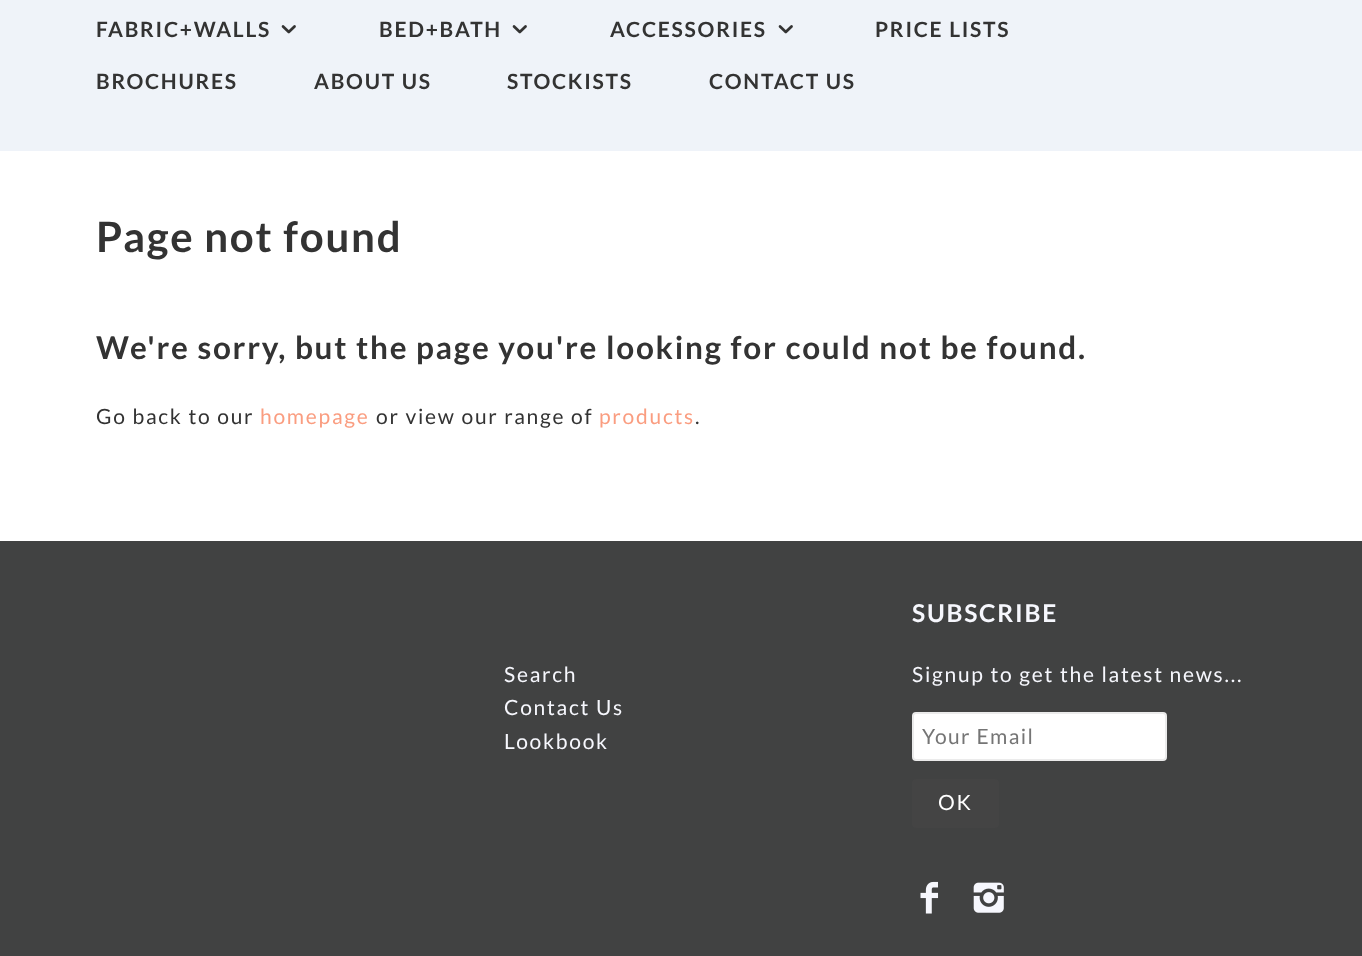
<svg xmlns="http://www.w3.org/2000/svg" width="1362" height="956">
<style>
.a{font:bold 21px Lato;letter-spacing:1.75px;fill:#333}
.b{font:bold 42px Lato;letter-spacing:1.75px;fill:#333}
.c{font:bold 31.5px Lato;letter-spacing:1.75px;fill:#333}
.d{font:21px Lato;letter-spacing:1.75px;fill:#333}
.e{font:21px Lato;letter-spacing:1.75px;fill:#fa9d80}
.f{font:21px Lato;letter-spacing:1.75px;fill:#f6f7fd}
.g{font:bold 24.5px Lato;letter-spacing:1.75px;fill:#f6f7fd}
.h{font:21px Lato;letter-spacing:1.4px;fill:#757575}
.i{font:21px Lato;letter-spacing:1.75px;fill:#fff}
</style>
<rect width="100%" height="100%" fill="#fff"/>
<path fill="#eff3f9" d="M0 0h1362v151H0z"/>
<image href="1.png" x="281" y="25" width="15" height="9"/>
<image href="1.png" x="512" y="25" width="15" height="9"/>
<image href="1.png" x="778" y="25" width="15" height="9"/>
<path fill="#414242" d="M0 541h1362v415H0z"/>
<rect fill="#fff" stroke="#ebebeb" stroke-width="2" x="913" y="713" width="253" height="47" rx="3"/>
<rect fill="#444" x="912" y="779" width="87" height="49" rx="4"/>
<image href="2.png" x="920" y="881" width="19" height="33"/>
<image href="3.png" x="973" y="882" width="31" height="31"/>
<text class="a" x="96" y="37">FABRIC+WALLS</text>
<text class="a" x="379" y="37">BED+BATH</text>
<text class="a" x="610" y="37">ACCESSORIES</text>
<text class="a" x="875" y="37">PRICE LISTS</text>
<text class="a" x="96" y="89">BROCHURES</text>
<text class="a" x="314" y="89">ABOUT US</text>
<text class="a" x="507" y="89">STOCKISTS</text>
<text class="a" x="709" y="89">CONTACT US</text>
<text class="b" x="96" y="252">Page not found</text>
<text class="c" x="96" y="359">We're sorry, but the page you're looking for could not be found.</text>
<text class="d" x="96" y="424">Go back to our</text>
<text class="e" x="260" y="424">homepage</text>
<text class="d" x="376" y="424">or view our range of</text>
<text class="e" x="599" y="424">products</text>
<text class="d" x="695" y="424">.</text>
<text class="f" x="504" y="682">Search</text>
<text class="f" x="504" y="715">Contact Us</text>
<text class="f" x="504" y="749">Lookbook</text>
<text class="g" x="912" y="622">SUBSCRIBE</text>
<text class="f" x="912" y="682">Signup to get the latest news...</text>
<text class="h" x="922" y="744">Your Email</text>
<text class="i" x="938" y="810">OK</text>
</svg>
